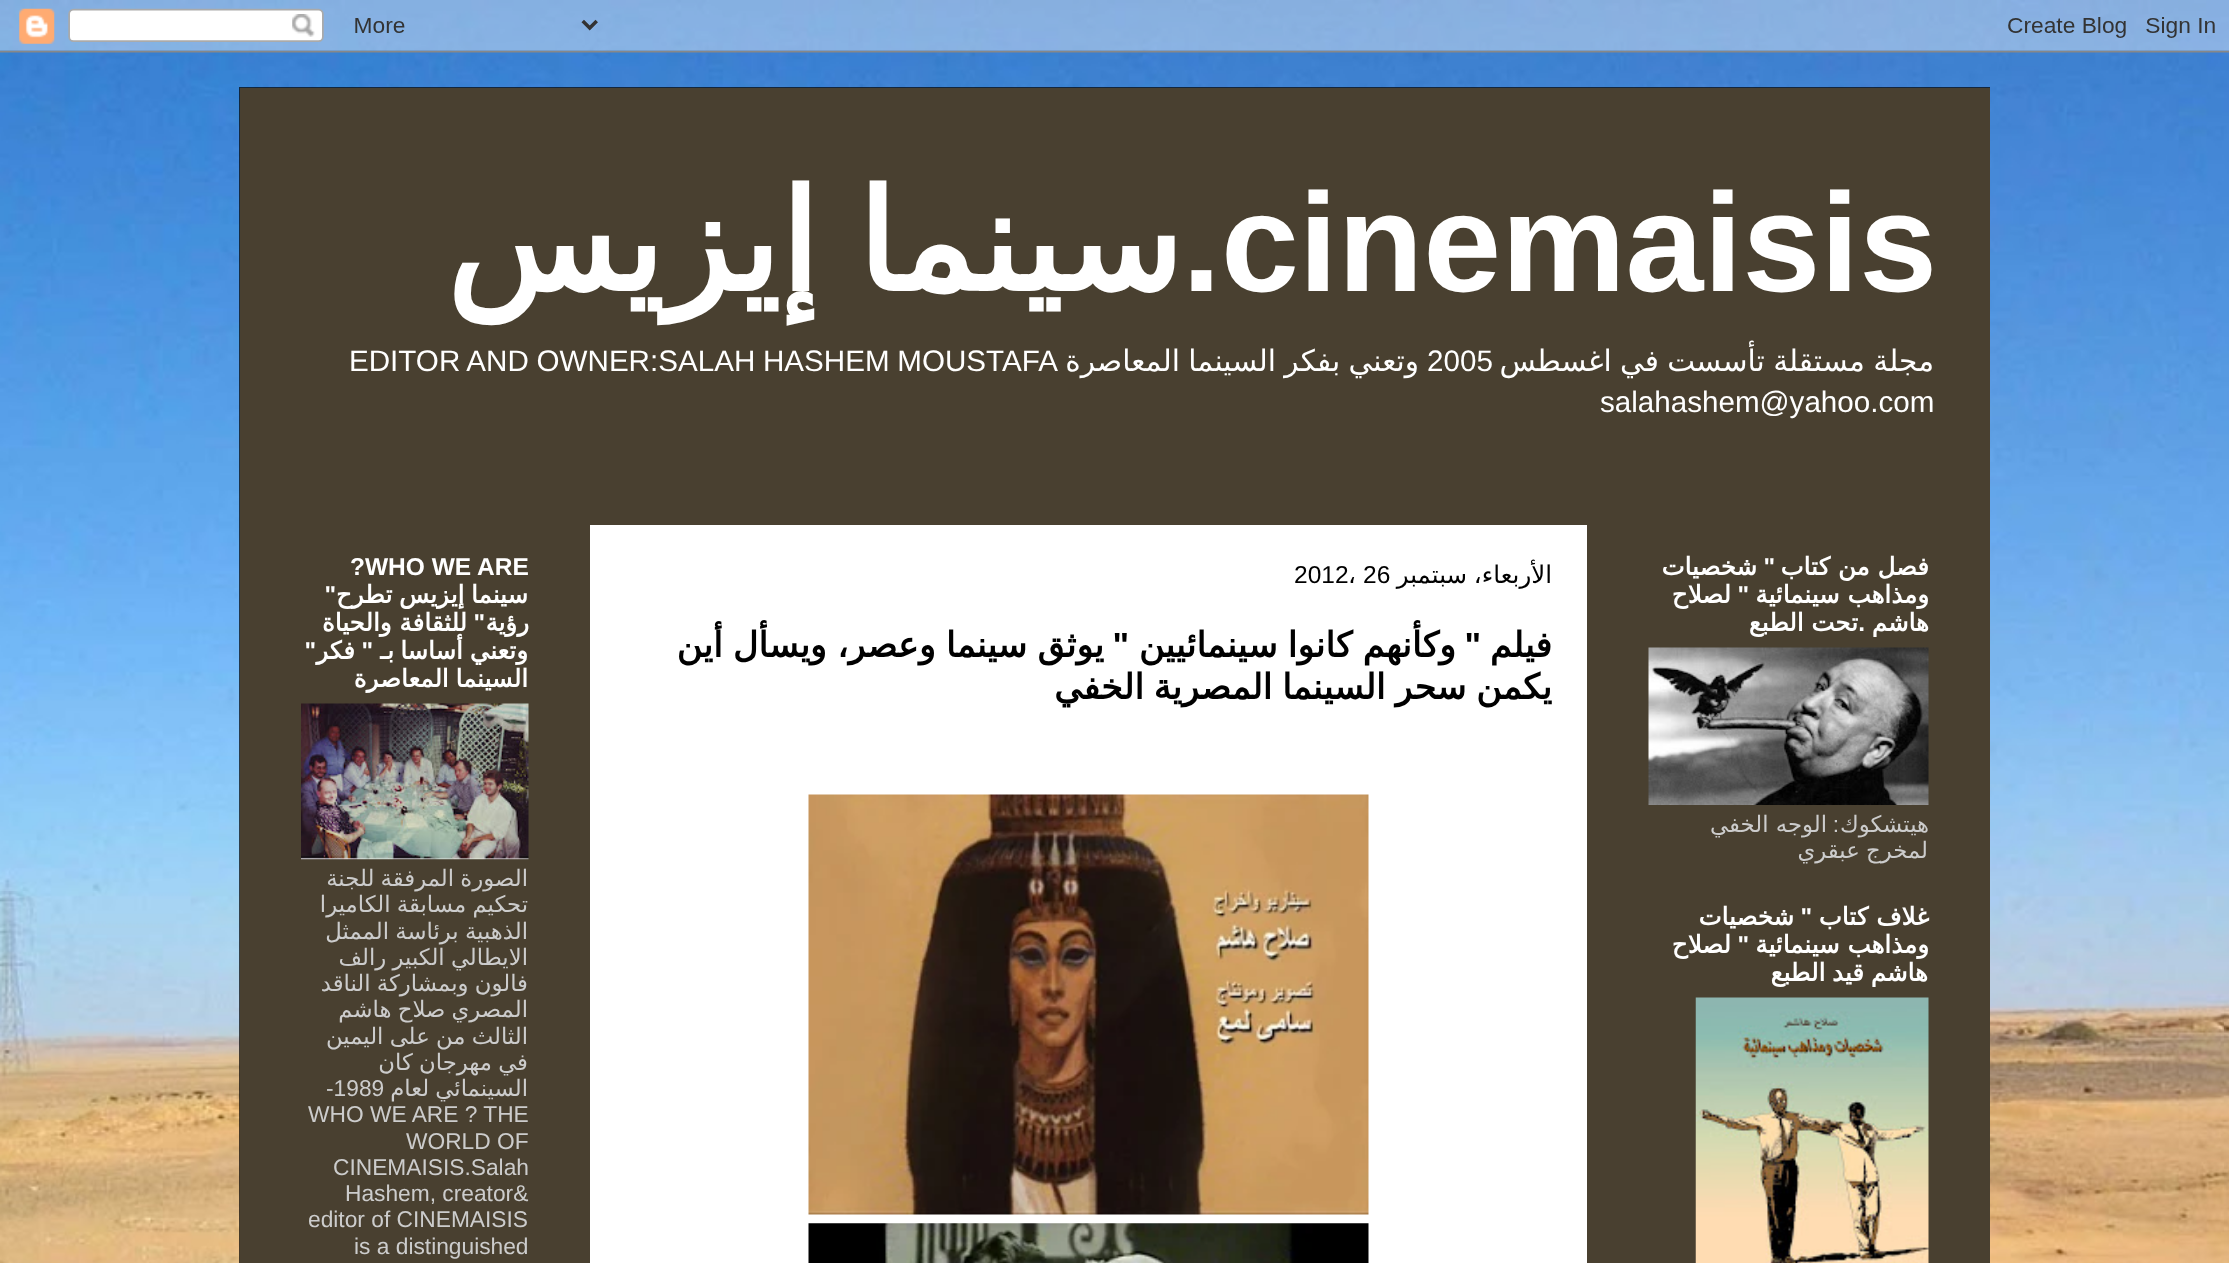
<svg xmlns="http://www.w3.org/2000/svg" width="2229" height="1263">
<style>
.a{font:bold 140px Liberation Sans;fill:#fff}
.b{font:bold 140px Liberation Sans;direction:rtl;fill:#fff}
.c{font:bold 140px DejaVu Sans;direction:rtl;fill:#fff}
.d{font:29.6px DejaVu Sans;direction:rtl;fill:#fff}
.e{font:29.6px Liberation Sans;fill:#fff}
.f{font:bold 24.5px DejaVu Sans;direction:rtl;fill:#fff}
.g{font:bold 24.5px Liberation Sans;direction:rtl;fill:#fff}
.h{font:22.75px DejaVu Sans;direction:rtl;fill:#ccc}
.i{font:22.75px Liberation Sans;direction:rtl;fill:#ccc}
.j{font:24.5px DejaVu Sans;direction:rtl;fill:#000}
.k{font:24.5px Liberation Sans;fill:#000}
.l{font:24.5px DejaVu Sans;fill:#000}
.m{font:bold 35px DejaVu Sans;direction:rtl;fill:#000}
.n{font:bold 35px Liberation Sans;direction:rtl;fill:#000}
.o{font:bold 24.5px Liberation Sans;fill:#fff}
.p{font:22.75px Liberation Sans;fill:#ccc}
</style>
<rect width="100%" height="100%" fill="#fff"/>
<image href="1.png" x="0" y="0" width="2229" height="1263"/>
<image href="2.png" x="0" y="0" width="2229" height="53"/>
<path fill="#f4d7a1" d="M240 88h1750v1175H240z"/>
<path fill="#000000b3" d="M239 87h1751v1176H239z"/>
<image href="3.png" x="1648" y="647" width="281" height="158"/>
<image href="4.png" x="1695" y="997" width="234" height="266"/>
<path fill="#fff" d="M590 525h997v738H590z"/>
<image href="5.png" x="808" y="794" width="561" height="421"/>
<image href="6.png" x="808" y="1223" width="561" height="40"/>
<image href="7.png" x="301" y="703" width="228" height="157"/>
<text class="a" x="1221" y="291">cinemaisis</text>
<text class="b" x="1221" y="291">.</text>
<text class="c" x="1182" y="291" word-spacing="-6">سينما إيزيس</text>
<text class="d" x="1934" y="371" word-spacing="-1">مجلة مستقلة تأسست في اغسطس</text>
<text class="e" x="1427" y="371">2005</text>
<text class="d" x="1419" y="371" word-spacing="-1">وتعني بفكر السينما المعاصرة</text>
<text class="e" x="349" y="371" word-spacing="-0.5">EDITOR AND OWNER:SALAH HASHEM MOUSTAFA</text>
<text class="e" x="1600" y="412">salahashem@yahoo.com</text>
<text class="f" x="1929" y="575">فصل من كتاب</text>
<text class="g" x="1775" y="575">"</text>
<text class="f" x="1757" y="575">شخصيات</text>
<text class="f" x="1929" y="603">ومذاهب سينمائية</text>
<text class="g" x="1749" y="603">"</text>
<text class="f" x="1731" y="603">لصلاح</text>
<text class="f" x="1929" y="631">هاشم</text>
<text class="g" x="1865" y="631">.</text>
<text class="f" x="1858" y="631">تحت الطبع</text>
<text class="h" x="1929" y="832">هيتشكوك</text>
<text class="i" x="1839" y="832">:</text>
<text class="h" x="1827" y="832">الوجه الخفي</text>
<text class="h" x="1928" y="858" word-spacing="-1">لمخرج عبقري</text>
<text class="f" x="1929" y="925">غلاف كتاب</text>
<text class="g" x="1812" y="925">"</text>
<text class="f" x="1794" y="925">شخصيات</text>
<text class="f" x="1929" y="953">ومذاهب سينمائية</text>
<text class="g" x="1749" y="953">"</text>
<text class="f" x="1731" y="953">لصلاح</text>
<text class="f" x="1928" y="981" word-spacing="-1">هاشم قيد الطبع</text>
<text class="j" x="1552" y="583" word-spacing="-1">الأربعاء، سبتمبر</text>
<text class="k" x="1363" y="583">26</text>
<text class="l" x="1348" y="583">،</text>
<text class="k" x="1294" y="583">2012</text>
<text class="m" x="1552" y="657">فيلم</text>
<text class="n" x="1481" y="657">"</text>
<text class="m" x="1456" y="657" word-spacing="-1">وكأنهم كانوا سينمائيين</text>
<text class="n" x="1129" y="657">"</text>
<text class="m" x="1104" y="657" word-spacing="-1">يوثق سينما وعصر، ويسأل أين</text>
<text class="m" x="1552" y="699" word-spacing="-1.5">يكمن سحر السينما المصرية الخفي</text>
<text class="o" x="350" y="575">?WHO WE ARE</text>
<text class="f" x="528" y="603" word-spacing="-1">سينما إيزيس تطرح</text>
<text class="g" x="336" y="603">"</text>
<text class="f" x="529" y="631">رؤية</text>
<text class="g" x="485" y="631">"</text>
<text class="f" x="467" y="631">للثقافة والحياة</text>
<text class="f" x="528" y="659" word-spacing="-1">وتعني أساسا</text>
<text class="g" x="373" y="659">"</text>
<text class="g" x="316" y="659">"</text>
<text class="f" x="355" y="659">فكر</text>
<text class="f" x="394" y="659">بـ</text>
<text class="f" x="528" y="687" word-spacing="-1">السينما المعاصرة</text>
<text class="h" x="528" y="886" word-spacing="-1">الصورة المرفقة للجنة</text>
<text class="h" x="528" y="912" word-spacing="-1">تحكيم مسابقة الكاميرا</text>
<text class="h" x="528" y="939" word-spacing="-1">الذهبية برئاسة الممثل</text>
<text class="h" x="528" y="965" word-spacing="-1">الايطالي الكبير رالف</text>
<text class="h" x="528" y="991" word-spacing="-1">فالون وبمشاركة الناقد</text>
<text class="h" x="528" y="1017" word-spacing="-1">المصري صلاح هاشم</text>
<text class="h" x="528" y="1044" word-spacing="-1">الثالث من على اليمين</text>
<text class="h" x="528" y="1070" word-spacing="-1">في مهرجان كان</text>
<text class="h" x="528" y="1096" word-spacing="-1">السينمائي لعام</text>
<text class="p" x="326" y="1096">-1989</text>
<text class="p" x="308" y="1122">WHO WE ARE ? THE</text>
<text class="p" x="406" y="1149">WORLD OF</text>
<text class="p" x="333" y="1175">CINEMAISIS.Salah</text>
<text class="p" x="345" y="1201">Hashem, creator&amp;</text>
<text class="p" x="308" y="1227">editor of CINEMAISIS</text>
<text class="p" x="354" y="1254">is a distinguished</text>
</svg>
